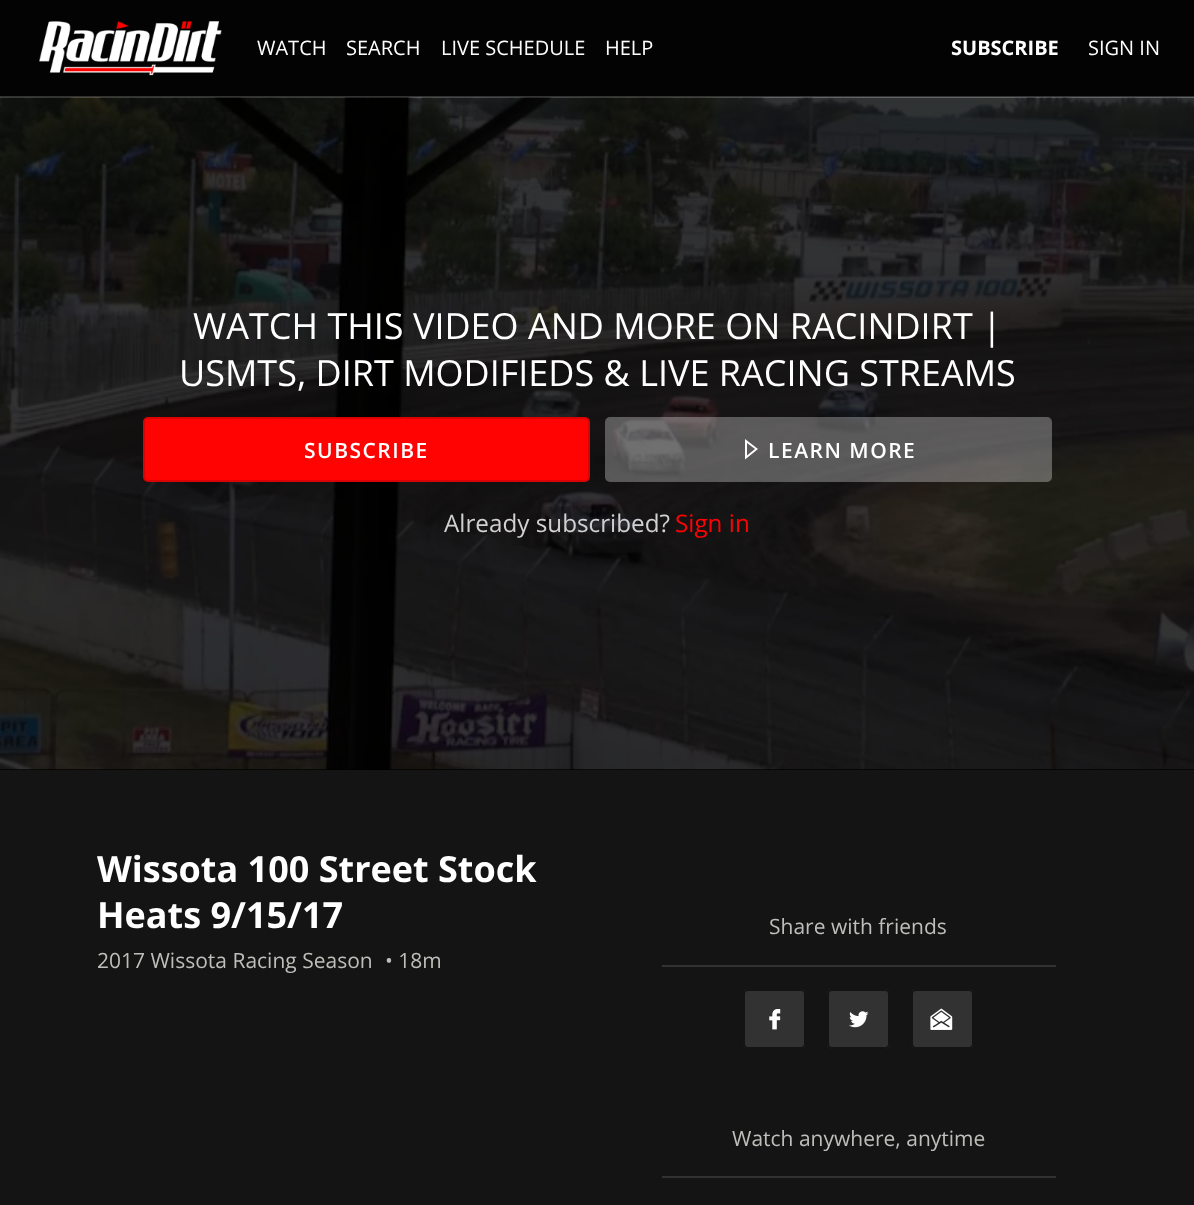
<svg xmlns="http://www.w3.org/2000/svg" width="1194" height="1205">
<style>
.a{font:20px Open Sans;fill:#fff}
.b{font:bold 20px Open Sans;fill:#fff}
.c{font:36px Open Sans;fill:#fff}
.d{font:600 21px Open Sans;letter-spacing:1.5px;fill:#fff}
.e{font:24.25px Open Sans;fill:#d1d1d1}
.f{font:24.25px Open Sans;fill:#ff0303}
.g{font:bold 36px Open Sans;fill:#fff}
.h{font:21px Open Sans;fill:#bebebb}
</style>
<rect width="100%" height="100%" fill="#141414"/>
<path fill="#030303" d="M0 0h1194v96H0z"/>
<path fill="#323232" d="M0 96h1194v2H0z"/>
<image href="1.png" x="39" y="21" width="183" height="55"/>
<path fill="#000" d="M0 769h1194v1H0z"/>
<image href="2.png" x="0" y="97" width="1194" height="673"/>
<rect fill="#ff0303" stroke="#d90303" stroke-width="2" x="144" y="418" width="445" height="63" rx="4"/>
<rect fill="#ffffff4d" x="605" y="417" width="447" height="65" rx="5"/>
<path fill="#fff" d="M745 459.5v-20.5l13 10zm2-16.5v12.5l8-6.5z"/>
<path fill="#323232" d="M662 965h394v2H662z"/>
<rect fill="#323232" x="743" y="989" width="63" height="60" rx="5"/>
<image href="3.png" x="769" y="1009" width="12" height="21"/>
<rect fill="none" stroke="#141414" stroke-width="2" x="744" y="990" width="61" height="58" rx="4"/>
<rect fill="#323232" x="827" y="989" width="63" height="60" rx="5"/>
<image href="4.png" x="849" y="1011" width="20" height="17"/>
<rect fill="none" stroke="#141414" stroke-width="2" x="828" y="990" width="61" height="58" rx="4"/>
<rect fill="#323232" x="911" y="989" width="63" height="60" rx="5"/>
<image href="5.png" x="930" y="1008" width="23" height="22"/>
<rect fill="none" stroke="#141414" stroke-width="2" x="912" y="990" width="61" height="58" rx="4"/>
<path fill="#323232" d="M662 1176h394v2H662z"/>
<text class="a" x="257" y="55">WATCH</text>
<text class="a" x="346" y="55">SEARCH</text>
<text class="a" x="441" y="55">LIVE SCHEDULE</text>
<text class="a" x="605" y="55">HELP</text>
<text class="b" x="951" y="55">SUBSCRIBE</text>
<text class="a" x="1088" y="55">SIGN IN</text>
<text class="c" x="193" y="339">WATCH THIS VIDEO AND MORE ON RACINDIRT |</text>
<text class="c" x="179" y="386">USMTS, DIRT MODIFIEDS &amp; LIVE RACING STREAMS</text>
<text class="d" x="304" y="458">SUBSCRIBE</text>
<text class="d" x="768" y="458">LEARN MORE</text>
<text class="e" x="444" y="532">Already subscribed?</text>
<text class="f" x="675" y="532">Sign in</text>
<text class="g" x="97" y="882">Wissota 100 Street Stock</text>
<text class="g" x="97" y="928">Heats 9/15/17</text>
<text class="h" x="97" y="968">2017 Wissota Racing Season</text>
<text class="h" x="385" y="968">• 18m</text>
<text class="h" x="769" y="934">Share with friends</text>
<text class="h" x="732" y="1146">Watch anywhere, anytime</text>
</svg>
